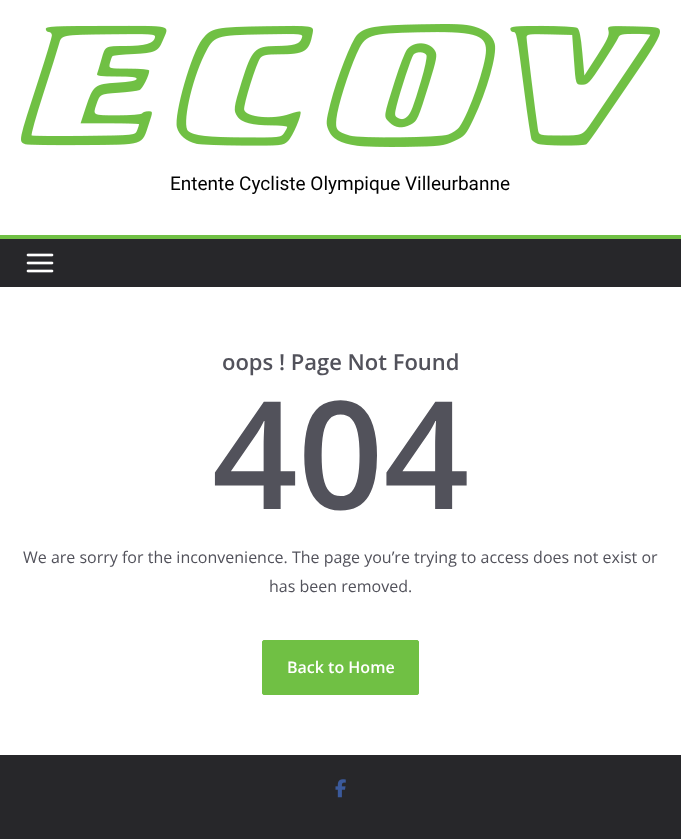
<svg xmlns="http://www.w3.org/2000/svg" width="681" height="839">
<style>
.a{font:19px Roboto;fill:#000}
.b{font:600 22px Open Sans;fill:#52525b}
.c{font:600 150px Open Sans;fill:#52525b}
.d{font:16px Open Sans;fill:#52525b}
.e{font:600 16px Open Sans;fill:#fff}
</style>
<rect width="100%" height="100%" fill="#fff"/>
<image href="1.png" x="21" y="24" width="639" height="123"/>
<path fill="#27272a" d="M0 239h681v48H0z"/>
<path fill="#70c044" d="M0 235h681v4H0z"/>
<image href="2.png" x="26" y="253" width="28" height="20"/>
<rect fill="#70c044" stroke="#70c044" x="262.5" y="640.5" width="156" height="54" rx="1.5"/>
<path fill="#27272a" d="M0 755h681v84H0z"/>
<image href="3.png" x="335" y="779" width="11" height="19"/>
<text class="a" x="170" y="190">Entente Cycliste Olympique Villeurbanne</text>
<text class="b" x="222" y="370">oops ! Page Not Found</text>
<text class="c" x="212" y="509">404</text>
<text class="d" x="23" y="563">We are sorry for the inconvenience. The page you’re trying to access does not exist or</text>
<text class="d" x="269" y="592">has been removed.</text>
<text class="e" x="287" y="673">Back to Home</text>
</svg>
